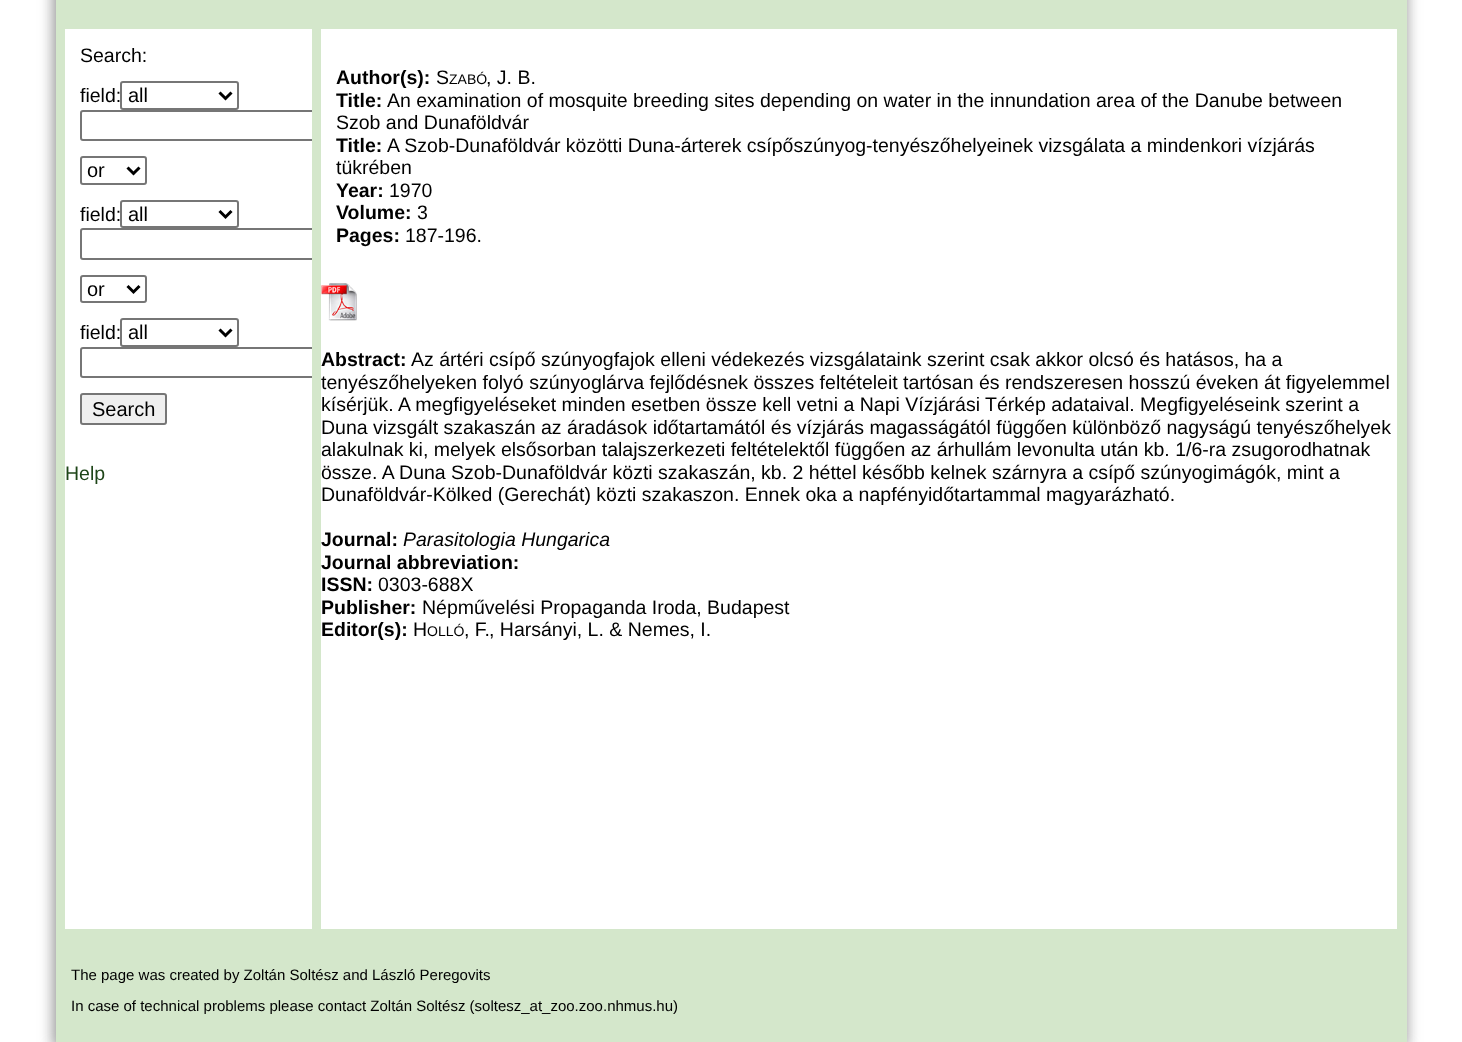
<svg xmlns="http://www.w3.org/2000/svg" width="1462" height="1042">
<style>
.a{font:19.5px Liberation Sans;fill:#000}
.b{font:20px Liberation Sans;fill:#000}
.c{font:19.5px Liberation Sans;fill:#1e4518}
.d{font:bold 19.5px Liberation Sans;fill:#000}
.e{font:14px Liberation Sans;fill:#000}
.f{font:italic 19.5px Liberation Sans;fill:#000}
.g{font:15px Liberation Sans;fill:#000}
</style>
<defs>
<clipPath id="clip1"><path d="M65 29h247v900H65z"/></clipPath>
</defs>
<rect width="100%" height="100%" fill="#fff"/>
<path fill="#8b8b8b" filter="blur(7.5px)" d="M54 -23h1352v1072H54z"/>
<path fill="#d4e7cb" d="M56 0h1351v1042H56z"/>
<path fill="#fff" d="M65 29h247v900H65z"/>
<rect fill="none" stroke="#767676" stroke-width="2" x="121" y="82" width="117" height="27" rx="2"/>
<path fill="none" stroke="#000" stroke-width="3" d="M219.5 92.5l6 6l6-6"/>
<path fill="#fff" d="M321 29h1076v900H321z"/>
<g clip-path="url(#clip1)">
<rect fill="none" stroke="#767676" stroke-width="2" x="81" y="111" width="251" height="29" rx="2"/>
</g>
<rect fill="none" stroke="#767676" stroke-width="2" x="81" y="157" width="65" height="27" rx="2"/>
<path fill="none" stroke="#000" stroke-width="3" d="M127.5 167.5l6 6l6-6"/>
<rect fill="none" stroke="#767676" stroke-width="2" x="121" y="201" width="117" height="26" rx="2"/>
<path fill="none" stroke="#000" stroke-width="3" d="M219.5 211l6 6l6-6"/>
<g clip-path="url(#clip1)">
<rect fill="none" stroke="#767676" stroke-width="2" x="81" y="229" width="251" height="30" rx="2"/>
</g>
<rect fill="none" stroke="#767676" stroke-width="2" x="81" y="276" width="65" height="26" rx="2"/>
<path fill="none" stroke="#000" stroke-width="3" d="M127.5 286l6 6l6-6"/>
<rect fill="none" stroke="#767676" stroke-width="2" x="121" y="319" width="117" height="27" rx="2"/>
<path fill="none" stroke="#000" stroke-width="3" d="M219.5 329.5l6 6l6-6"/>
<rect fill="#efefef" stroke="#767676" stroke-width="2" x="81" y="394" width="85" height="30" rx="2"/>
<image href="1.png" x="321" y="283" width="36" height="38"/>
<text class="a" x="80" y="62">Search:</text>
<text class="a" x="80" y="102">field:</text>
<text class="b" x="128" y="102">all</text>
<text class="b" x="87" y="177">or</text>
<text class="a" x="80" y="221">field:</text>
<text class="b" x="128" y="221">all</text>
<text class="b" x="87" y="296">or</text>
<text class="a" x="80" y="339">field:</text>
<text class="b" x="128" y="339">all</text>
<text class="b" x="92" y="416">Search</text>
<text class="c" x="65" y="480">Help</text>
<text class="d" x="336" y="84">Author(s):</text>
<text class="a" x="436" y="84">S</text>
<text class="e" x="449" y="84">ZABÓ</text>
<text class="a" x="486" y="84">, J. B.</text>
<text class="d" x="336" y="107">Title:</text>
<text class="a" x="387" y="107">An examination of mosquite breeding sites depending on water in the innundation area of the Danube between</text>
<text class="a" x="336" y="129">Szob and Dunaföldvár</text>
<text class="d" x="336" y="152">Title:</text>
<text class="a" x="387" y="152">A Szob-Dunaföldvár közötti Duna-árterek csípőszúnyog-tenyészőhelyeinek vizsgálata a mindenkori vízjárás</text>
<text class="a" x="336" y="174">tükrében</text>
<text class="d" x="336" y="197">Year:</text>
<text class="a" x="389" y="197">1970</text>
<text class="d" x="336" y="219">Volume:</text>
<text class="a" x="417" y="219">3</text>
<text class="d" x="336" y="242">Pages:</text>
<text class="a" x="405" y="242">187-196.</text>
<text class="d" x="321" y="366">Abstract:</text>
<text class="a" x="411" y="366">Az ártéri csípő szúnyogfajok elleni védekezés vizsgálataink szerint csak akkor olcsó és hatásos, ha a</text>
<text class="a" x="321" y="389">tenyészőhelyeken folyó szúnyoglárva fejlődésnek összes feltételeit tartósan és rendszeresen hosszú éveken át figyelemmel</text>
<g clip-path="url(#clip1)">
<rect fill="none" stroke="#767676" stroke-width="2" x="81" y="348" width="251" height="29" rx="2"/>
</g>
<text class="a" x="321" y="411">kísérjük. A megfigyeléseket minden esetben össze kell vetni a Napi Vízjárási Térkép adataival. Megfigyeléseink szerint a</text>
<text class="a" x="321" y="434">Duna vizsgált szakaszán az áradások időtartamától és vízjárás magasságától függően különböző nagyságú tenyészőhelyek</text>
<text class="a" x="321" y="456">alakulnak ki, melyek elsősorban talajszerkezeti feltételektől függően az árhullám levonulta után kb. 1/6-ra zsugorodhatnak</text>
<text class="a" x="321" y="479">össze. A Duna Szob-Dunaföldvár közti szakaszán, kb. 2 héttel később kelnek szárnyra a csípő szúnyogimágók, mint a</text>
<text class="a" x="321" y="501">Dunaföldvár-Kölked (Gerechát) közti szakaszon. Ennek oka a napfényidőtartammal magyarázható.</text>
<text class="d" x="321" y="546">Journal:</text>
<text class="f" x="403" y="546">Parasitologia Hungarica</text>
<text class="d" x="321" y="569">Journal abbreviation:</text>
<text class="d" x="321" y="591">ISSN:</text>
<text class="a" x="378" y="591">0303-688X</text>
<text class="d" x="321" y="614">Publisher:</text>
<text class="a" x="422" y="614">Népművelési Propaganda Iroda, Budapest</text>
<text class="d" x="321" y="636">Editor(s):</text>
<text class="a" x="413" y="636">H</text>
<text class="e" x="427" y="636">OLLÓ</text>
<text class="a" x="464" y="636">, F.</text>
<text class="a" x="489" y="636">, Harsányi, L. &amp; Nemes, I.</text>
<text class="g" x="71" y="980">The page was created by Zoltán Soltész and László Peregovits</text>
<text class="g" x="71" y="1011">In case of technical problems please contact Zoltán Soltész (soltesz_at_zoo.zoo.nhmus.hu)</text>
</svg>
